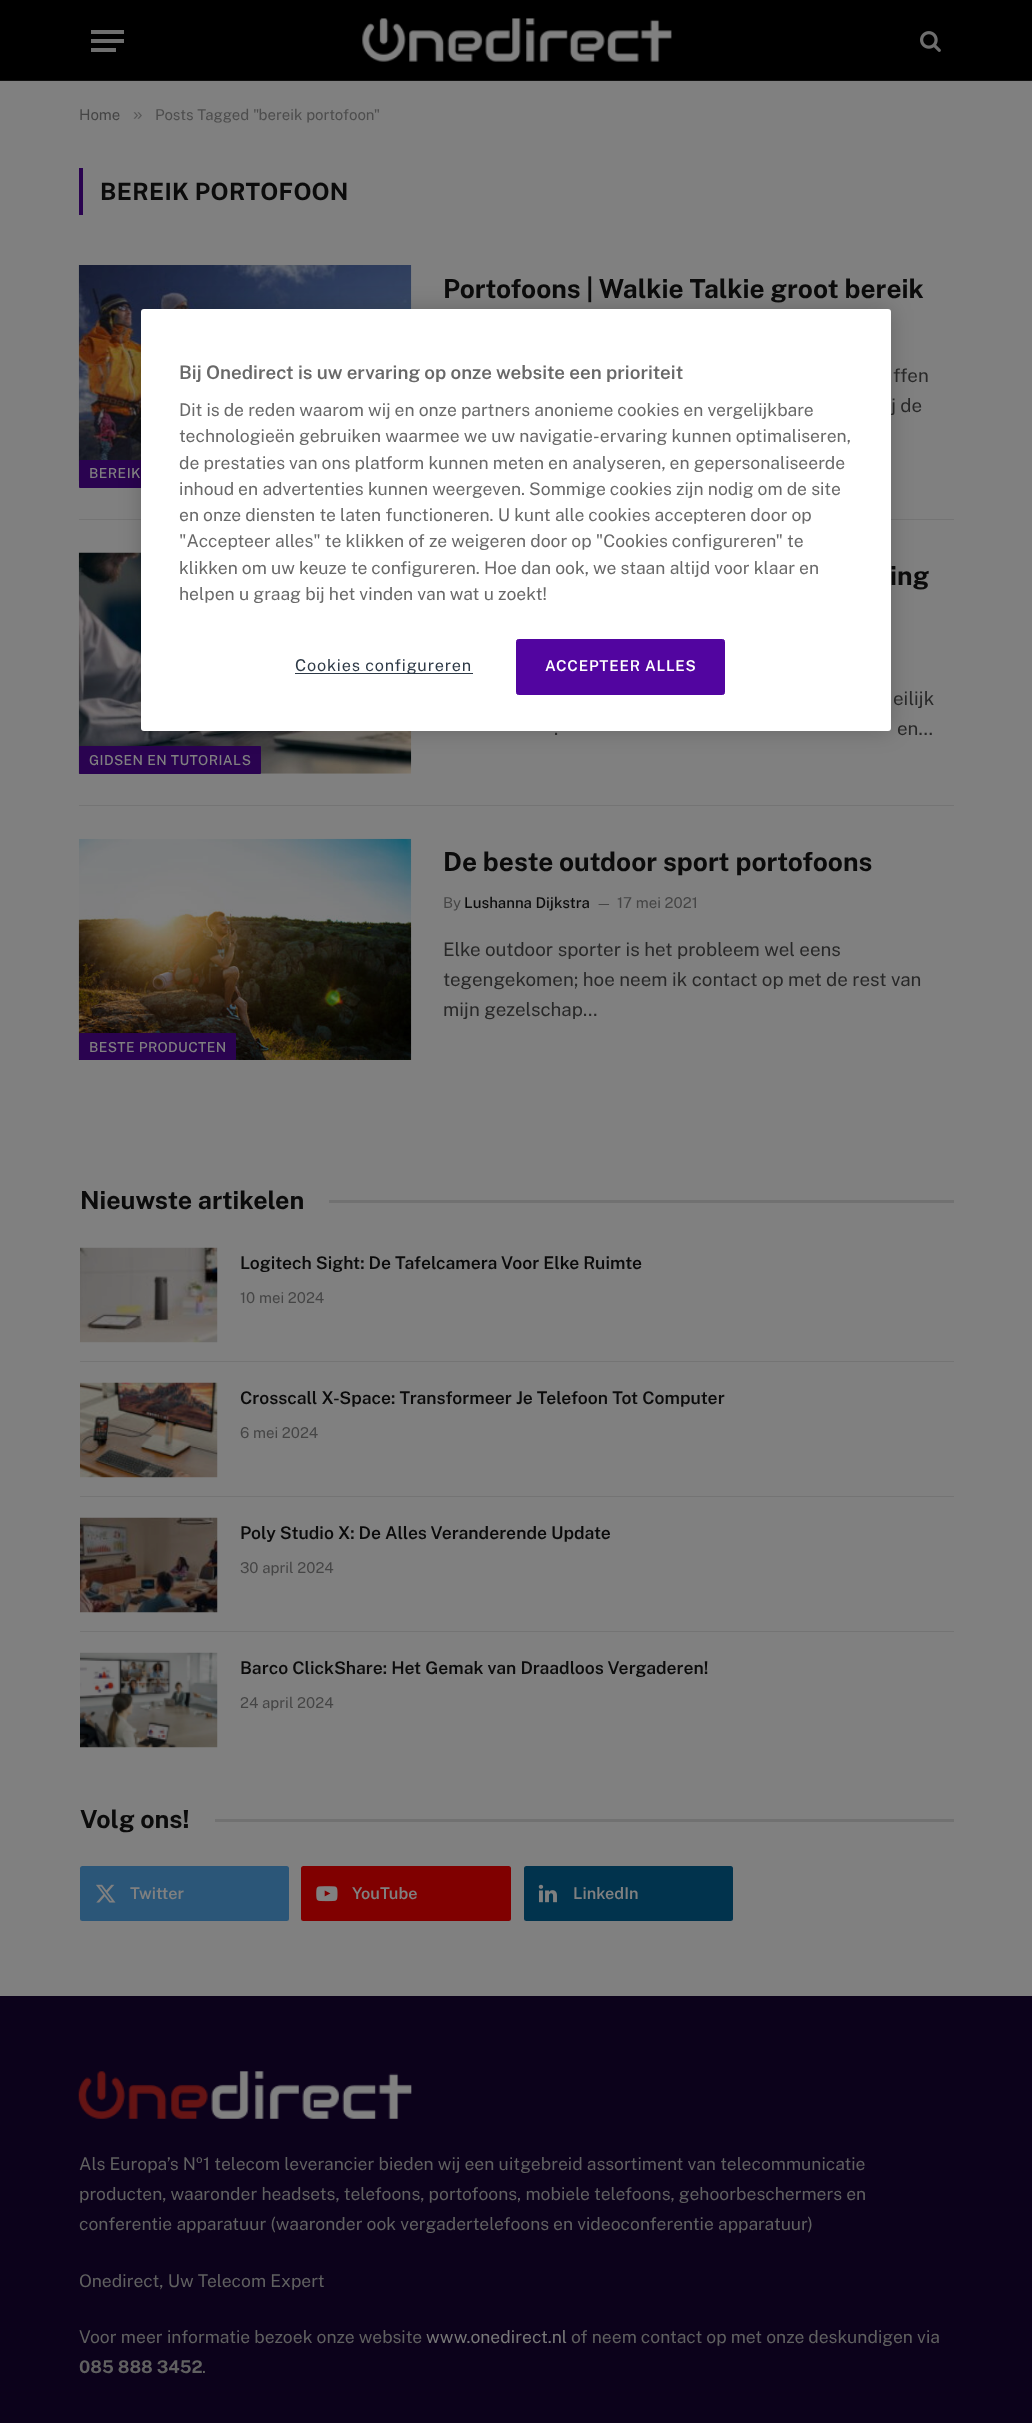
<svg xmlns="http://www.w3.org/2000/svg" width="1032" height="2423">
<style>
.a{font:15px Public Sans;fill:#454545}
.b{font:17px Liberation Sans;fill:#575757}
.c{font:15px Public Sans;fill:#4d4d4d}
.d{font:bold 23.75px Public Sans;letter-spacing:0.25px;fill:#0b0b0b}
.e{font:bold 26.25px Public Sans;fill:#0b0b0b}
.f{font:18.75px Public Sans;fill:#282828}
.g{font:500 13.75px Public Sans;letter-spacing:0.4px;fill:#808080}
.h{font:500 15px Public Sans;fill:#0b0b0b}
.i{font:14px Public Sans;fill:#454545}
.j{font:bold 25px Public Sans;fill:#0b0b0b}
.k{font:600 17.5px Public Sans;fill:#0b0b0b}
.l{font:600 16.25px Public Sans;fill:#808080}
.m{font:17.5px Public Sans;fill:#606060}
.n{font:17.5px Public Sans;fill:#787878}
.o{font:bold 17.5px Public Sans;fill:#606060}
.p{font:600 18.75px Public Sans;fill:#696969}
.q{font:17.5px Public Sans;fill:#696969}
.r{font:16.25px Public Sans;letter-spacing:0.8px;fill:#2e3a47}
.s{font:600 15px Public Sans;letter-spacing:0.75px;fill:#fff}
</style>
<rect width="100%" height="100%" fill="#808080"/>
<path fill="#000" d="M0 0h1032v80H0z"/>
<path fill="#111" d="M0 80h1032v1H0z"/>
<path fill="#6f6f6f" d="M91 48h25v4H91z"/>
<path fill="#6f6f6f" d="M91 30h33v4H91z"/>
<path fill="#6f6f6f" d="M91 39h33v4H91z"/>
<image href="1.png" x="362" y="18" width="310" height="44"/>
<image href="2.png" x="920" y="31" width="21" height="21"/>
<path fill="#2a0350" d="M79 168h4v47H79z"/>
<image href="3.png" x="78" y="265" width="334" height="223"/>
<rect fill="#2a0350" x="79" y="460" width="72" height="28" rx="1"/>
<path fill="#747474" d="M79 519h875v1H79z"/>
<image href="4.png" x="78" y="552" width="334" height="222"/>
<rect fill="#2a0350" x="79" y="746" width="182" height="28" rx="1"/>
<path fill="#747474" d="M79 805h875v1H79z"/>
<image href="5.png" x="78" y="838" width="334" height="222"/>
<rect fill="#2a0350" x="79" y="1033" width="157" height="27" rx="1"/>
<path fill="#717171" d="M329 1200h625v3H329z"/>
<image href="6.png" x="80" y="1247" width="138" height="96"/>
<path fill="#747474" d="M80 1361h874v1H80z"/>
<image href="7.png" x="80" y="1382" width="138" height="96"/>
<path fill="#747474" d="M80 1496h874v1H80z"/>
<image href="8.png" x="80" y="1517" width="138" height="96"/>
<path fill="#747474" d="M80 1631h874v1H80z"/>
<image href="9.png" x="80" y="1652" width="138" height="96"/>
<path fill="#717171" d="M215 1819h739v3H215z"/>
<rect fill="#2b5678" x="80" y="1866" width="209" height="55" rx="2.5"/>
<image href="10.png" x="96" y="1884" width="20" height="19"/>
<rect fill="#800000" x="301" y="1866" width="210" height="55" rx="2.5"/>
<image href="11.png" x="316" y="1886" width="22" height="16"/>
<rect fill="#01334d" x="524" y="1866" width="209" height="55" rx="2.5"/>
<image href="12.png" x="538" y="1884" width="19" height="19"/>
<path fill="#0c021b" d="M0 1996h1032v427H0z"/>
<image href="13.png" x="78" y="2071" width="334" height="48"/>
<rect fill="#00000033" filter="blur(11px)" x="141" y="309" width="750" height="422" rx="3"/>
<text class="a" x="79" y="120">Home</text>
<text class="b" x="133" y="120">»</text>
<text class="c" x="155" y="120">Posts Tagged "bereik portofoon"</text>
<text class="d" x="100" y="200">BEREIK PORTOFOON</text>
<text class="e" x="443" y="298">Portofoons | Walkie Talkie groot bereik</text>
<text class="f" x="893" y="382">ffen</text>
<text class="f" x="891" y="412">j de</text>
<text class="g" x="89" y="478">BEREIK</text>
<text class="e" x="890" y="585">ing</text>
<text class="f" x="893" y="705">eilijk</text>
<text class="f" x="554" y="735">.</text>
<text class="f" x="897" y="735">en…</text>
<text class="g" x="89" y="765">GIDSEN EN TUTORIALS</text>
<text class="e" x="443" y="871">De beste outdoor sport portofoons</text>
<text class="a" x="443" y="908">By</text>
<text class="h" x="464" y="908">Lushanna Dijkstra</text>
<text class="i" x="596" y="908">—</text>
<text class="a" x="617" y="908">17 mei 2021</text>
<text class="f" x="443" y="956">Elke outdoor sporter is het probleem wel eens</text>
<text class="f" x="443" y="986">tegengekomen; hoe neem ik contact op met de rest van</text>
<text class="f" x="443" y="1016">mijn gezelschap…</text>
<text class="g" x="89" y="1052">BESTE PRODUCTEN</text>
<text class="j" x="80" y="1209">Nieuwste artikelen</text>
<text class="k" x="240" y="1269">Logitech Sight: De Tafelcamera Voor Elke Ruimte</text>
<text class="a" x="240" y="1303">10 mei 2024</text>
<text class="k" x="240" y="1404">Crosscall X-Space: Transformeer Je Telefoon Tot Computer</text>
<text class="a" x="240" y="1438">6 mei 2024</text>
<text class="k" x="240" y="1539">Poly Studio X: De Alles Veranderende Update</text>
<text class="a" x="240" y="1573">30 april 2024</text>
<text class="k" x="240" y="1674">Barco ClickShare: Het Gemak van Draadloos Vergaderen!</text>
<text class="a" x="240" y="1708">24 april 2024</text>
<text class="j" x="80" y="1828">Volg ons!</text>
<text class="l" x="130" y="1899">Twitter</text>
<text class="l" x="352" y="1899">YouTube</text>
<text class="l" x="573" y="1899">LinkedIn</text>
<text class="m" x="79" y="2170">Als Europa’s Nº1 telecom leverancier bieden wij een uitgebreid assortiment van telecommunicatie</text>
<text class="m" x="79" y="2200">producten, waaronder headsets, telefoons, portofoons, mobiele telefoons, gehoorbeschermers en</text>
<text class="m" x="79" y="2230">conferentie apparatuur (waaronder ook vergadertelefoons en videoconferentie apparatuur)</text>
<text class="m" x="79" y="2287">Onedirect, Uw Telecom Expert</text>
<text class="m" x="79" y="2343">Voor meer informatie bezoek onze website</text>
<text class="n" x="426" y="2343">www.onedirect.nl</text>
<text class="m" x="571" y="2343">of neem contact op met onze deskundigen via</text>
<text class="o" x="79" y="2373">085 888 3452</text>
<text class="m" x="202" y="2373">.</text>
<rect fill="#fff" x="141" y="309" width="750" height="422" rx="3"/>
<text class="p" x="179" y="379">Bij Onedirect is uw ervaring op onze website een prioriteit</text>
<text class="q" x="179" y="416">Dit is de reden waarom wij en onze partners anonieme cookies en vergelijkbare</text>
<text class="q" x="179" y="442">technologieën gebruiken waarmee we uw navigatie-ervaring kunnen optimaliseren,</text>
<text class="q" x="179" y="469">de prestaties van ons platform kunnen meten en analyseren, en gepersonaliseerde</text>
<text class="q" x="179" y="495">inhoud en advertenties kunnen weergeven. Sommige cookies zijn nodig om de site</text>
<text class="q" x="179" y="521">en onze diensten te laten functioneren. U kunt alle cookies accepteren door op</text>
<text class="q" x="179" y="547">"Accepteer alles" te klikken of ze weigeren door op "Cookies configureren" te</text>
<text class="q" x="179" y="574">klikken om uw keuze te configureren. Hoe dan ook, we staan altijd voor klaar en</text>
<text class="q" x="179" y="600">helpen u graag bij het vinden van wat u zoekt!</text>
<path fill="#2e3a47" d="M295 673h178v1H295z"/>
<text class="r" x="295" y="671">Cookies configureren</text>
<rect fill="#5205a0" stroke="#5205a0" x="516.5" y="639.5" width="208" height="55" rx="2"/>
<text class="s" x="545" y="671">ACCEPTEER ALLES</text>
</svg>
